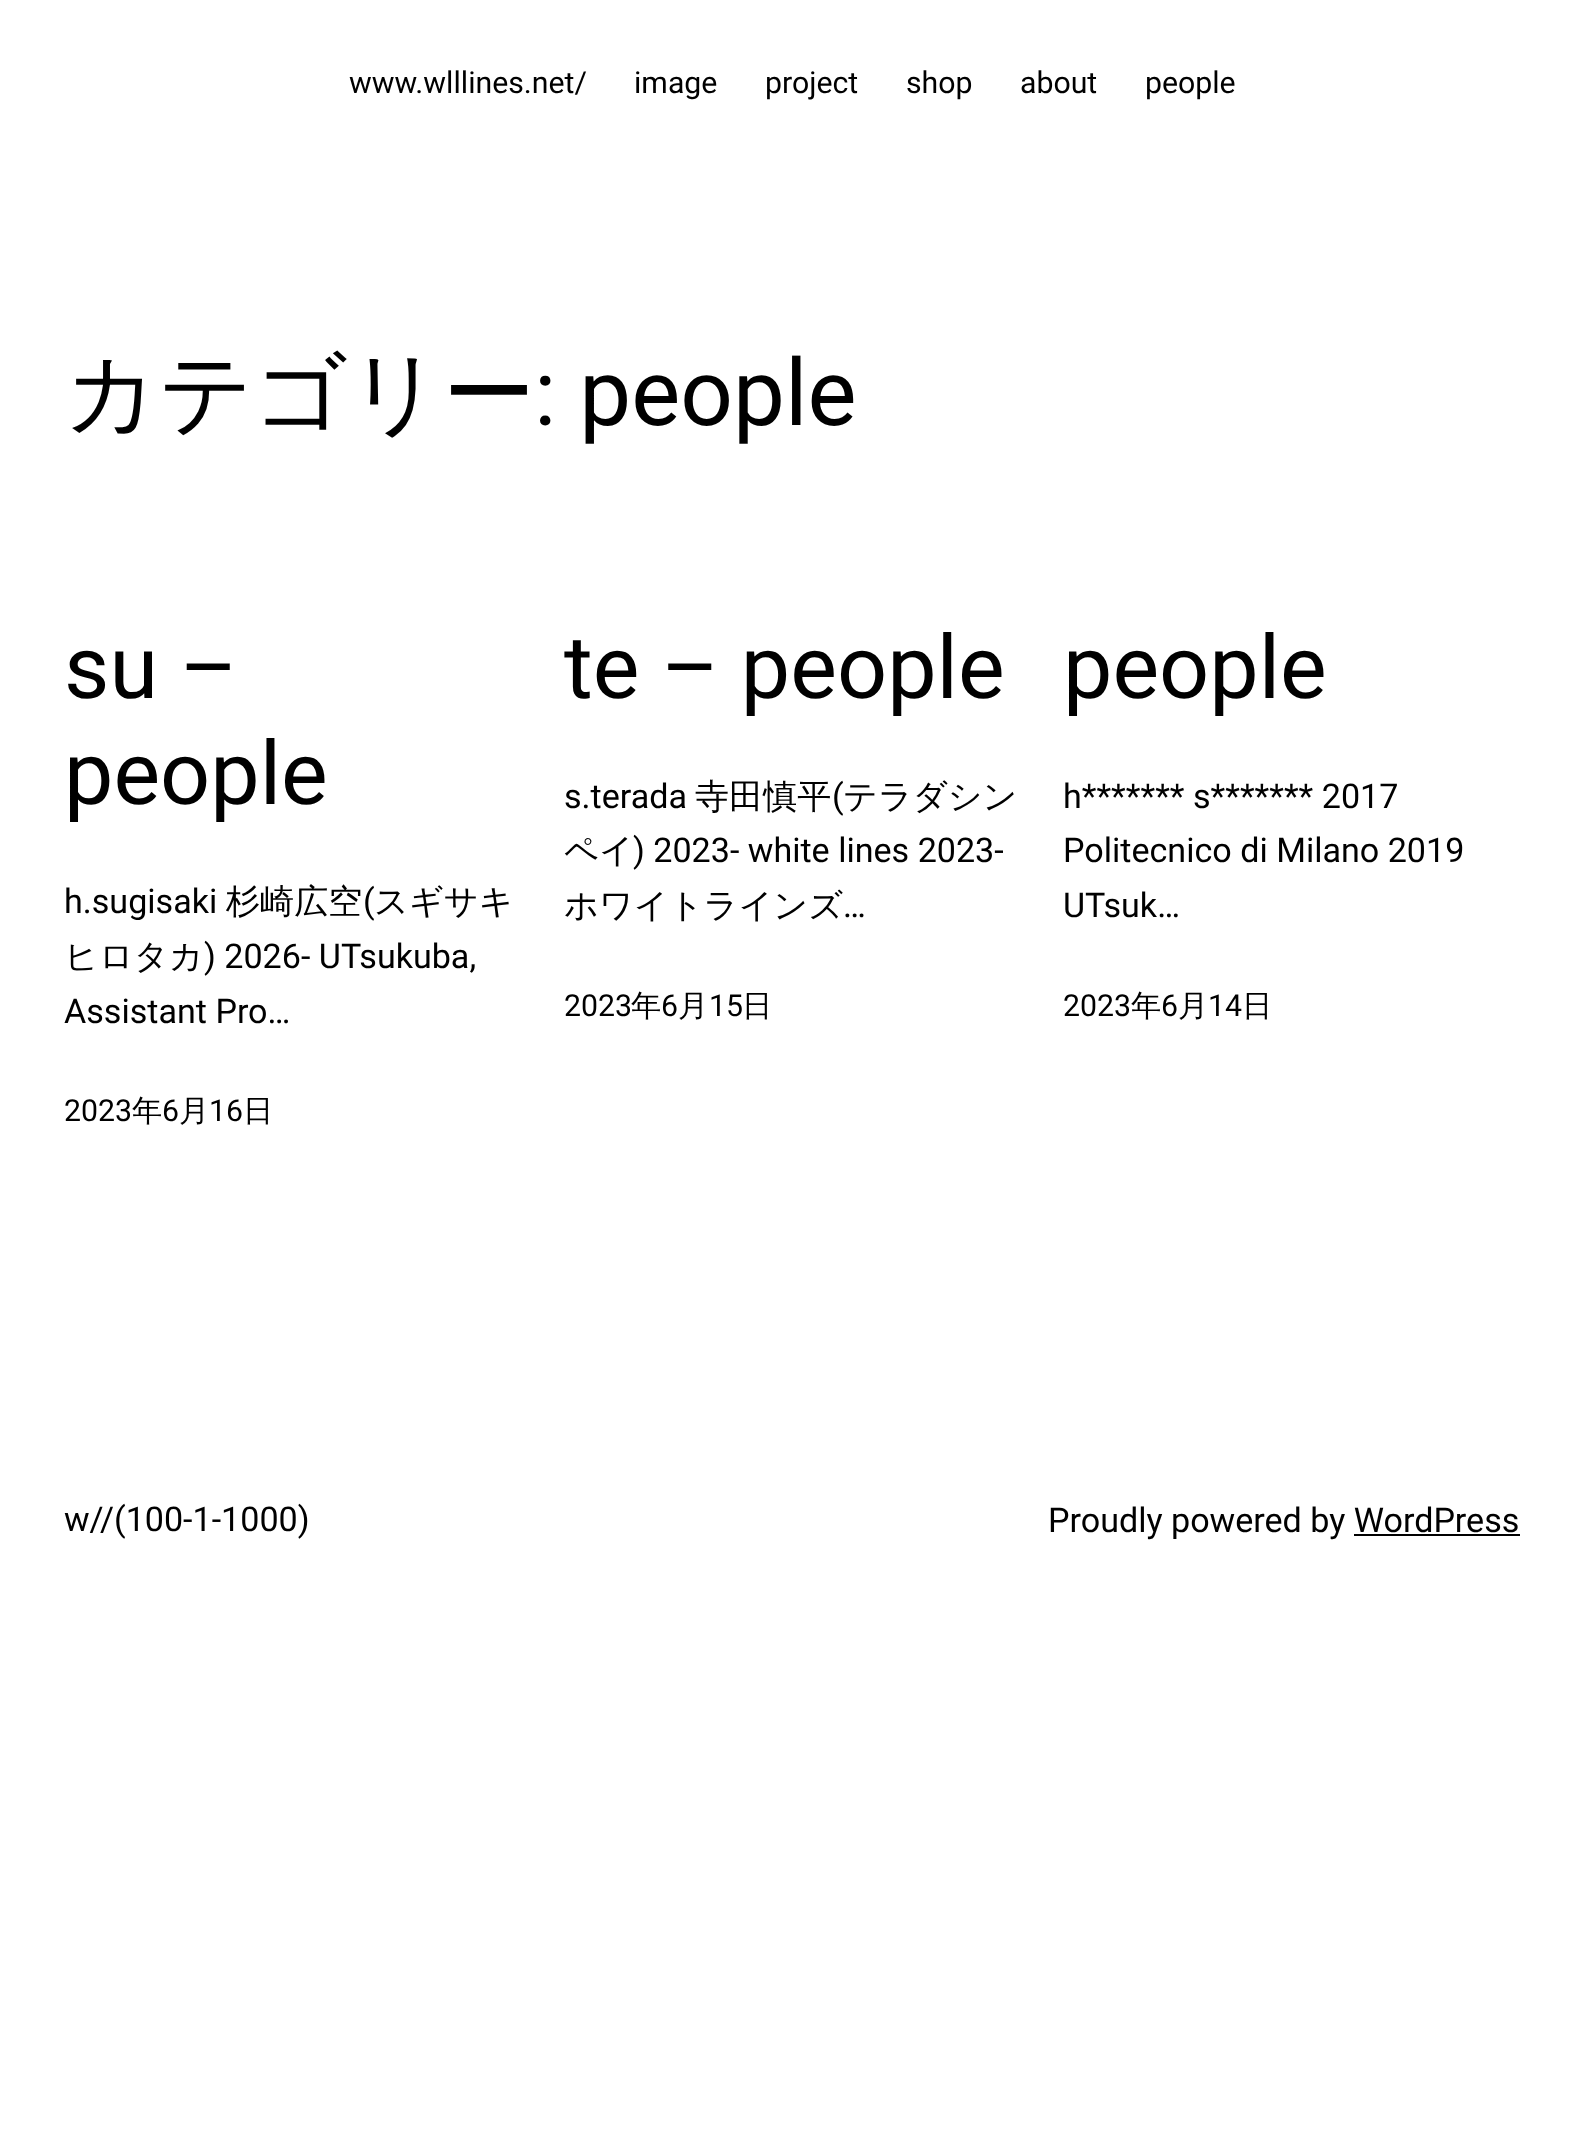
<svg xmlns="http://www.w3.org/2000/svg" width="1583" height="2151">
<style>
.a{font:30.25px Roboto;fill:#000}
.b{font:500 92.5px WenQuanYi Zen Hei;fill:#000}
.c{font:92.5px Roboto;fill:#000}
.d{font:88px Roboto;fill:#000}
.e{font:34.1px Roboto;fill:#000}
.f{font:500 34.1px WenQuanYi Zen Hei;fill:#000}
.g{font:500 30.25px WenQuanYi Zen Hei;fill:#000}
</style>
<rect width="100%" height="100%" fill="#fff"/>
<path fill="#000" d="M1354 1534h166v2H1354z"/>
<text class="a" x="349" y="93">www.wlllines.net/</text>
<text class="a" x="634" y="93">image</text>
<text class="a" x="765" y="93">project</text>
<text class="a" x="906" y="93">shop</text>
<text class="a" x="1020" y="93">about</text>
<text class="a" x="1145" y="93">people</text>
<text class="b" x="64" y="425">カテゴリー</text>
<text class="c" x="534" y="425">: people</text>
<text class="d" x="64" y="698">su –</text>
<text class="d" x="64" y="804">people</text>
<text class="e" x="64" y="913">h.sugisaki</text>
<text class="f" x="226" y="913">杉崎広空</text>
<text class="e" x="363" y="913">(</text>
<text class="f" x="374" y="913">スギサキ</text>
<text class="f" x="64" y="968">ヒロタカ</text>
<text class="e" x="204" y="968">) 2026- UTsukuba,</text>
<text class="e" x="64" y="1023">Assistant Pro…</text>
<text class="a" x="64" y="1121">2023</text>
<text class="g" x="132" y="1121">年</text>
<text class="a" x="162" y="1121">6</text>
<text class="g" x="179" y="1121">月</text>
<text class="a" x="209" y="1121">16</text>
<text class="g" x="243" y="1121">日</text>
<text class="d" x="564" y="698">te – people</text>
<text class="e" x="564" y="808">s.terada</text>
<text class="f" x="695" y="808">寺田慎平</text>
<text class="e" x="832" y="808">(</text>
<text class="f" x="843" y="808">テラダシン</text>
<text class="f" x="564" y="862">ペイ</text>
<text class="e" x="633" y="862">) 2023- white lines 2023-</text>
<text class="f" x="564" y="917">ホワイトラインズ</text>
<text class="e" x="843" y="917">…</text>
<text class="a" x="564" y="1016">2023</text>
<text class="g" x="631" y="1016">年</text>
<text class="a" x="661" y="1016">6</text>
<text class="g" x="678" y="1016">月</text>
<text class="a" x="709" y="1016">15</text>
<text class="g" x="742" y="1016">日</text>
<text class="d" x="1063" y="698">people</text>
<text class="e" x="1063" y="808">h******* s******* 2017</text>
<text class="e" x="1063" y="862">Politecnico di Milano 2019</text>
<text class="e" x="1063" y="917">UTsuk…</text>
<text class="a" x="1063" y="1016">2023</text>
<text class="g" x="1131" y="1016">年</text>
<text class="a" x="1161" y="1016">6</text>
<text class="g" x="1178" y="1016">月</text>
<text class="a" x="1208" y="1016">14</text>
<text class="g" x="1242" y="1016">日</text>
<text class="e" x="64" y="1531">w//(100-1-1000)</text>
<text class="e" x="1048" y="1532">Proudly powered by WordPress</text>
</svg>
